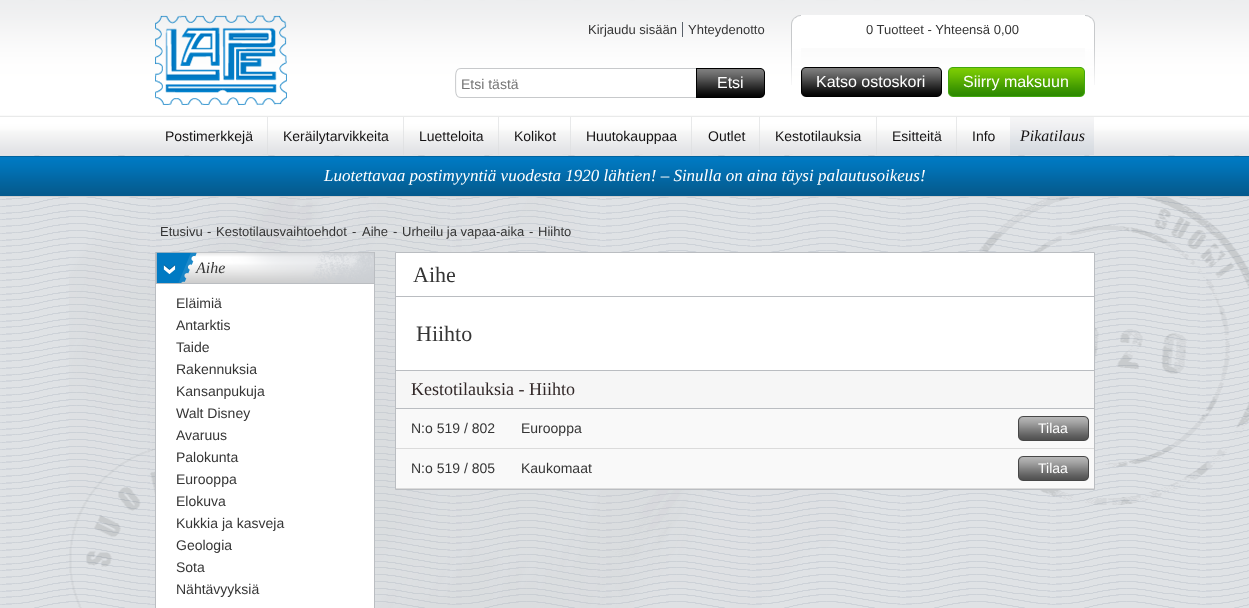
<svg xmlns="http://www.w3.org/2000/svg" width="1249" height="608">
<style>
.a{font:13px Liberation Sans;fill:#353535}
.b{font:14px Liberation Sans;fill:#757575}
.c{font:16px Liberation Sans;fill:#fff}
.d{font:14px Liberation Sans;fill:#141213}
.e{font:italic 16px Liberation Serif;fill:#141213}
.f{font:italic 17px Liberation Serif;fill:#fff}
.g{font:italic 16px Liberation Serif;fill:#353535}
.h{font:14px Liberation Sans;fill:#353535}
.i{font:22px Liberation Serif;fill:#353535}
.j{font:18px Liberation Serif;fill:#312727}
.k{font:14px Liberation Sans;fill:#fff}
</style>
<rect width="100%" height="100%" fill="#fff"/>
<image href="1.png" x="0" y="0" width="1249" height="608"/>
<image href="2.png" x="69" y="197" width="1180" height="411"/>
<image href="3.png" x="0" y="0" width="1249" height="155"/>
<path fill="#cfcfcf" d="M0 196h1249v1H0z"/>
<image href="4.png" x="155" y="15" width="132" height="90"/>
<path fill="#596069" d="M682 22h1v15H682z"/>
<image href="5.png" x="455" y="68" width="241" height="30"/>
<image href="6.png" x="697" y="68" width="62" height="30"/>
<path fill="#000" d="M696 68h1v30H696z"/>
<image href="7.png" x="759" y="68" width="6" height="30"/>
<image href="8.png" x="791" y="15" width="10" height="70"/>
<path fill="#fff" d="M801 15h284v33H801z"/>
<image href="9.png" x="801" y="67" width="135" height="30"/>
<image href="7.png" x="936" y="67" width="6" height="30"/>
<image href="10.png" x="948" y="67" width="131" height="30"/>
<image href="11.png" x="1079" y="67" width="6" height="30"/>
<image href="12.png" x="1085" y="15" width="10" height="70"/>
<path fill="#dbdddfa6" d="M267 117h1v37H267z"/>
<path fill="#dbdddfa6" d="M403 117h1v38H403z"/>
<path fill="#dbdddfa6" d="M498 117h1v38H498z"/>
<path fill="#dbdddfa6" d="M570 117h1v38H570z"/>
<path fill="#dbdddfa6" d="M691 117h1v38H691z"/>
<path fill="#dbdddfa6" d="M759 117h1v38H759z"/>
<path fill="#dbdddfa6" d="M876 117h1v38H876z"/>
<path fill="#dbdddfa6" d="M956 117h1v38H956z"/>
<image href="13.png" x="1010" y="117" width="84" height="38"/>
<image href="14.png" x="0" y="156" width="1249" height="40"/>
<path fill="#fff" d="M156 284h218v324H156z"/>
<path fill="#babdc1" d="M374 252h1v356H374z"/>
<path fill="#babdc1" d="M155 252h1v356H155z"/>
<image href="15.png" x="156" y="252" width="218" height="32"/>
<image href="16.png" x="163" y="264" width="13" height="11"/>
<path fill="#fff" d="M396 253h698v117H396z"/>
<path fill="none" stroke="#babdc1" d="M395.5 252.5h699v237H395.5z"/>
<path fill="#babdc1" d="M396 296h698v1H396z"/>
<path fill="#f6f6f6" d="M396 371h698v37H396z"/>
<path fill="#babdc1" d="M396 370h698v1H396z"/>
<path fill="#babdc1" d="M396 408h698v1H396z"/>
<path fill="#f9f9f9" d="M396 409h698v39H396z"/>
<path fill="#dbdbdb" d="M396 448h698v1H396z"/>
<image href="17.png" x="1018" y="416" width="65" height="25"/>
<image href="18.png" x="1083" y="416" width="6" height="25"/>
<path fill="#f9f9f9" d="M396 449h698v39H396z"/>
<path fill="#dbdbdb" d="M396 488h698v1H396z"/>
<image href="17.png" x="1018" y="456" width="65" height="25"/>
<image href="18.png" x="1083" y="456" width="6" height="25"/>
<text class="a" x="588" y="34">Kirjaudu sisään</text>
<text class="a" x="688" y="34">Yhteydenotto</text>
<text class="b" x="461" y="89">Etsi tästä</text>
<text class="c" x="717" y="88">Etsi</text>
<text class="a" x="866" y="34">0 Tuotteet - Yhteensä 0,00</text>
<text class="c" x="816" y="87">Katso ostoskori</text>
<text class="c" x="963" y="87">Siirry maksuun</text>
<text class="d" x="165" y="141">Postimerkkejä</text>
<text class="d" x="283" y="141">Keräilytarvikkeita</text>
<text class="d" x="419" y="141">Luetteloita</text>
<text class="d" x="514" y="141">Kolikot</text>
<text class="d" x="586" y="141">Huutokauppaa</text>
<text class="d" x="708" y="141">Outlet</text>
<text class="d" x="775" y="141">Kestotilauksia</text>
<text class="d" x="892" y="141">Esitteitä</text>
<text class="d" x="972" y="141">Info</text>
<text class="e" x="1020" y="141">Pikatilaus</text>
<text class="f" x="324" y="181">Luotettavaa postimyyntiä vuodesta 1920 lähtien! – Sinulla on aina täysi palautusoikeus!</text>
<text class="a" x="160" y="236">Etusivu</text>
<text class="a" x="207" y="236">-</text>
<text class="a" x="216" y="236">Kestotilausvaihtoehdot</text>
<text class="a" x="352" y="236">-</text>
<text class="a" x="362" y="236">Aihe</text>
<text class="a" x="393" y="236">-</text>
<text class="a" x="402" y="236">Urheilu ja vapaa-aika</text>
<text class="a" x="529" y="236">-</text>
<text class="a" x="538" y="236">Hiihto</text>
<text class="g" x="196" y="273">Aihe</text>
<text class="h" x="176" y="308">Eläimiä</text>
<text class="h" x="176" y="330">Antarktis</text>
<text class="h" x="176" y="352">Taide</text>
<text class="h" x="176" y="374">Rakennuksia</text>
<text class="h" x="176" y="396">Kansanpukuja</text>
<text class="h" x="176" y="418">Walt Disney</text>
<text class="h" x="176" y="440">Avaruus</text>
<text class="h" x="176" y="462">Palokunta</text>
<text class="h" x="176" y="484">Eurooppa</text>
<text class="h" x="176" y="506">Elokuva</text>
<text class="h" x="176" y="528">Kukkia ja kasveja</text>
<text class="h" x="176" y="550">Geologia</text>
<text class="h" x="176" y="572">Sota</text>
<text class="h" x="176" y="594">Nähtävyyksiä</text>
<text class="i" x="413" y="282">Aihe</text>
<text class="i" x="416" y="341">Hiihto</text>
<text class="j" x="411" y="395">Kestotilauksia - Hiihto</text>
<text class="h" x="411" y="433">N:o 519 / 802</text>
<text class="h" x="521" y="433">Eurooppa</text>
<text class="k" x="1038" y="433">Tilaa</text>
<text class="h" x="411" y="473">N:o 519 / 805</text>
<text class="h" x="521" y="473">Kaukomaat</text>
<text class="k" x="1038" y="473">Tilaa</text>
</svg>
